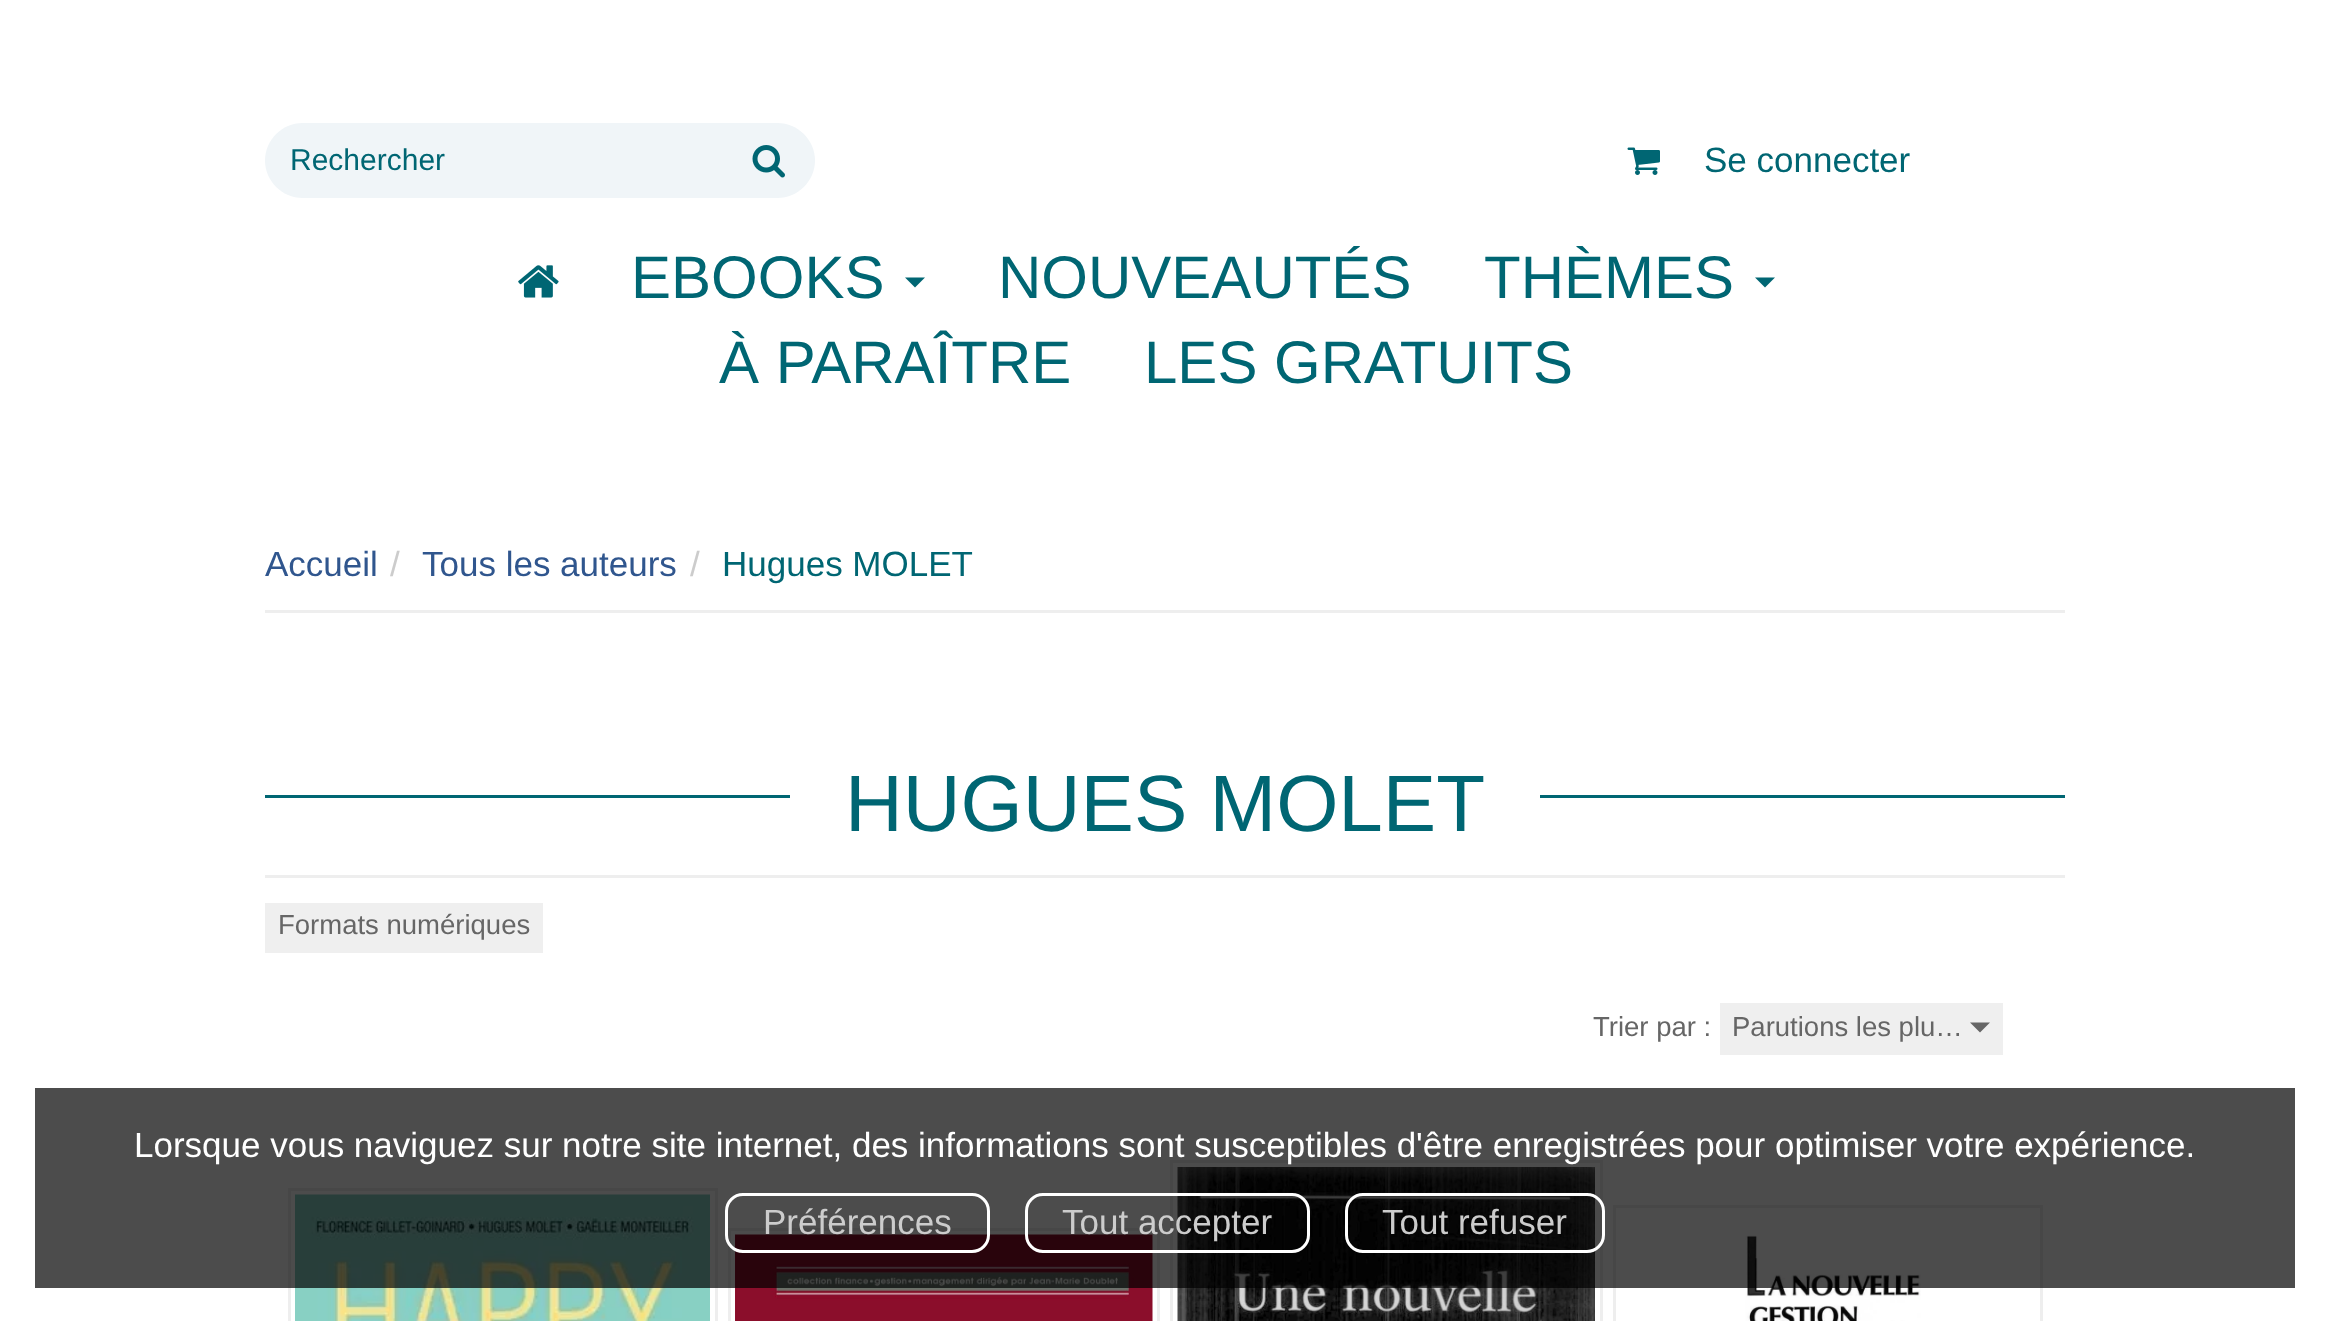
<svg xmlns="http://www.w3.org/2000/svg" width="2330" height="1321">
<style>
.a{font:30px Liberation Sans;fill:#006673}
.b{font:35px Liberation Sans;fill:#006673}
.c{font:60px Liberation Sans;fill:#006673}
.d{font:35px Liberation Sans;fill:#30568e}
.e{font:35px Liberation Sans;fill:#ccc}
.f{font:80px Liberation Sans;fill:#006673}
.g{font:27.5px Liberation Sans;fill:#666}
.h{font:35px Liberation Sans;fill:#fff}
</style>
<rect width="100%" height="100%" fill="#fff"/>
<path fill="#f0f5f8" d="M302.5 123h420.5v75h-420.5c-20.5 0-37.5-17-37.5-37.5c0-20.5 17-37.5 37.5-37.5z"/>
<path fill="#f0f5f8" d="M723 123h54.5c20.5 0 37.5 17 37.5 37.5c0 20.5-17 37.5-37.5 37.5h-54.5z"/>
<image href="1.png" x="752" y="145" width="33" height="33"/>
<image href="2.png" x="1627" y="147" width="33" height="28"/>
<image href="3.png" x="518" y="265" width="41" height="33"/>
<path fill="#006673" d="M905 277.5h20l-10 10z"/>
<path fill="#006673" d="M1755 277.5h20l-10 10z"/>
<path fill="#eee" d="M265 610h1800v3H265z"/>
<path fill="#006673" d="M265 795h525v3H265z"/>
<path fill="#006673" d="M1540 795h525v3H1540z"/>
<path fill="#eee" d="M265 875h1800v3H265z"/>
<path fill="#efefef" d="M265 903h278v50H265z"/>
<path fill="#efefef" d="M1720 1003h283v52H1720z"/>
<path fill="#666" d="M1970 1022.5h20l-10 10z"/>
<path fill="none" stroke="#eee" stroke-width="3" d="M289.5 1189.5h427v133H289.5z"/>
<image href="4.png" x="295" y="1194" width="415" height="127"/>
<path fill="none" stroke="#eee" stroke-width="3" d="M729.5 1229.5h429v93H729.5z"/>
<image href="5.png" x="735" y="1234" width="418" height="87"/>
<path fill="none" stroke="#eee" stroke-width="3" d="M1171.5 1161.5h430v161H1171.5z"/>
<image href="6.png" x="1177" y="1167" width="418" height="154"/>
<path fill="none" stroke="#eee" stroke-width="3" d="M1614.5 1206.5h427v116H1614.5z"/>
<image href="7.png" x="1745" y="1235" width="176" height="86"/>
<path fill="#000000b3" d="M35 1088h2260v200H35z"/>
<rect fill="none" stroke="#fff" stroke-width="3" x="726.5" y="1194.5" width="262" height="57" rx="16.5"/>
<rect fill="none" stroke="#fff" stroke-width="3" x="1026.5" y="1194.5" width="282" height="57" rx="16.5"/>
<rect fill="none" stroke="#fff" stroke-width="3" x="1346.5" y="1194.5" width="257" height="57" rx="16.5"/>
<text class="a" x="290" y="170">Rechercher</text>
<text class="b" x="1704" y="172">Se connecter</text>
<text class="c" x="631" y="298">EBOOKS</text>
<text class="c" x="998" y="298">NOUVEAUTÉS</text>
<text class="c" x="1484" y="298">THÈMES</text>
<text class="c" x="719" y="383">À PARAÎTRE</text>
<text class="c" x="1144" y="383">LES GRATUITS</text>
<text class="d" x="265" y="576">Accueil</text>
<text class="e" x="390" y="576">/</text>
<text class="d" x="422" y="576">Tous les auteurs</text>
<text class="e" x="690" y="576">/</text>
<text class="b" x="722" y="576">Hugues MOLET</text>
<text class="f" x="845" y="831">HUGUES MOLET</text>
<text class="g" x="278" y="934">Formats numériques</text>
<text class="g" x="1593" y="1036">Trier par :</text>
<text class="g" x="1732" y="1036">Parutions les plu…</text>
<text class="h" x="134" y="1157">Lorsque vous naviguez sur notre site internet, des informations sont susceptibles d'être enregistrées pour optimiser votre expérience.</text>
<text class="e" x="763" y="1234">Préférences</text>
<text class="e" x="1062" y="1234">Tout accepter</text>
<text class="e" x="1382" y="1234">Tout refuser</text>
</svg>
